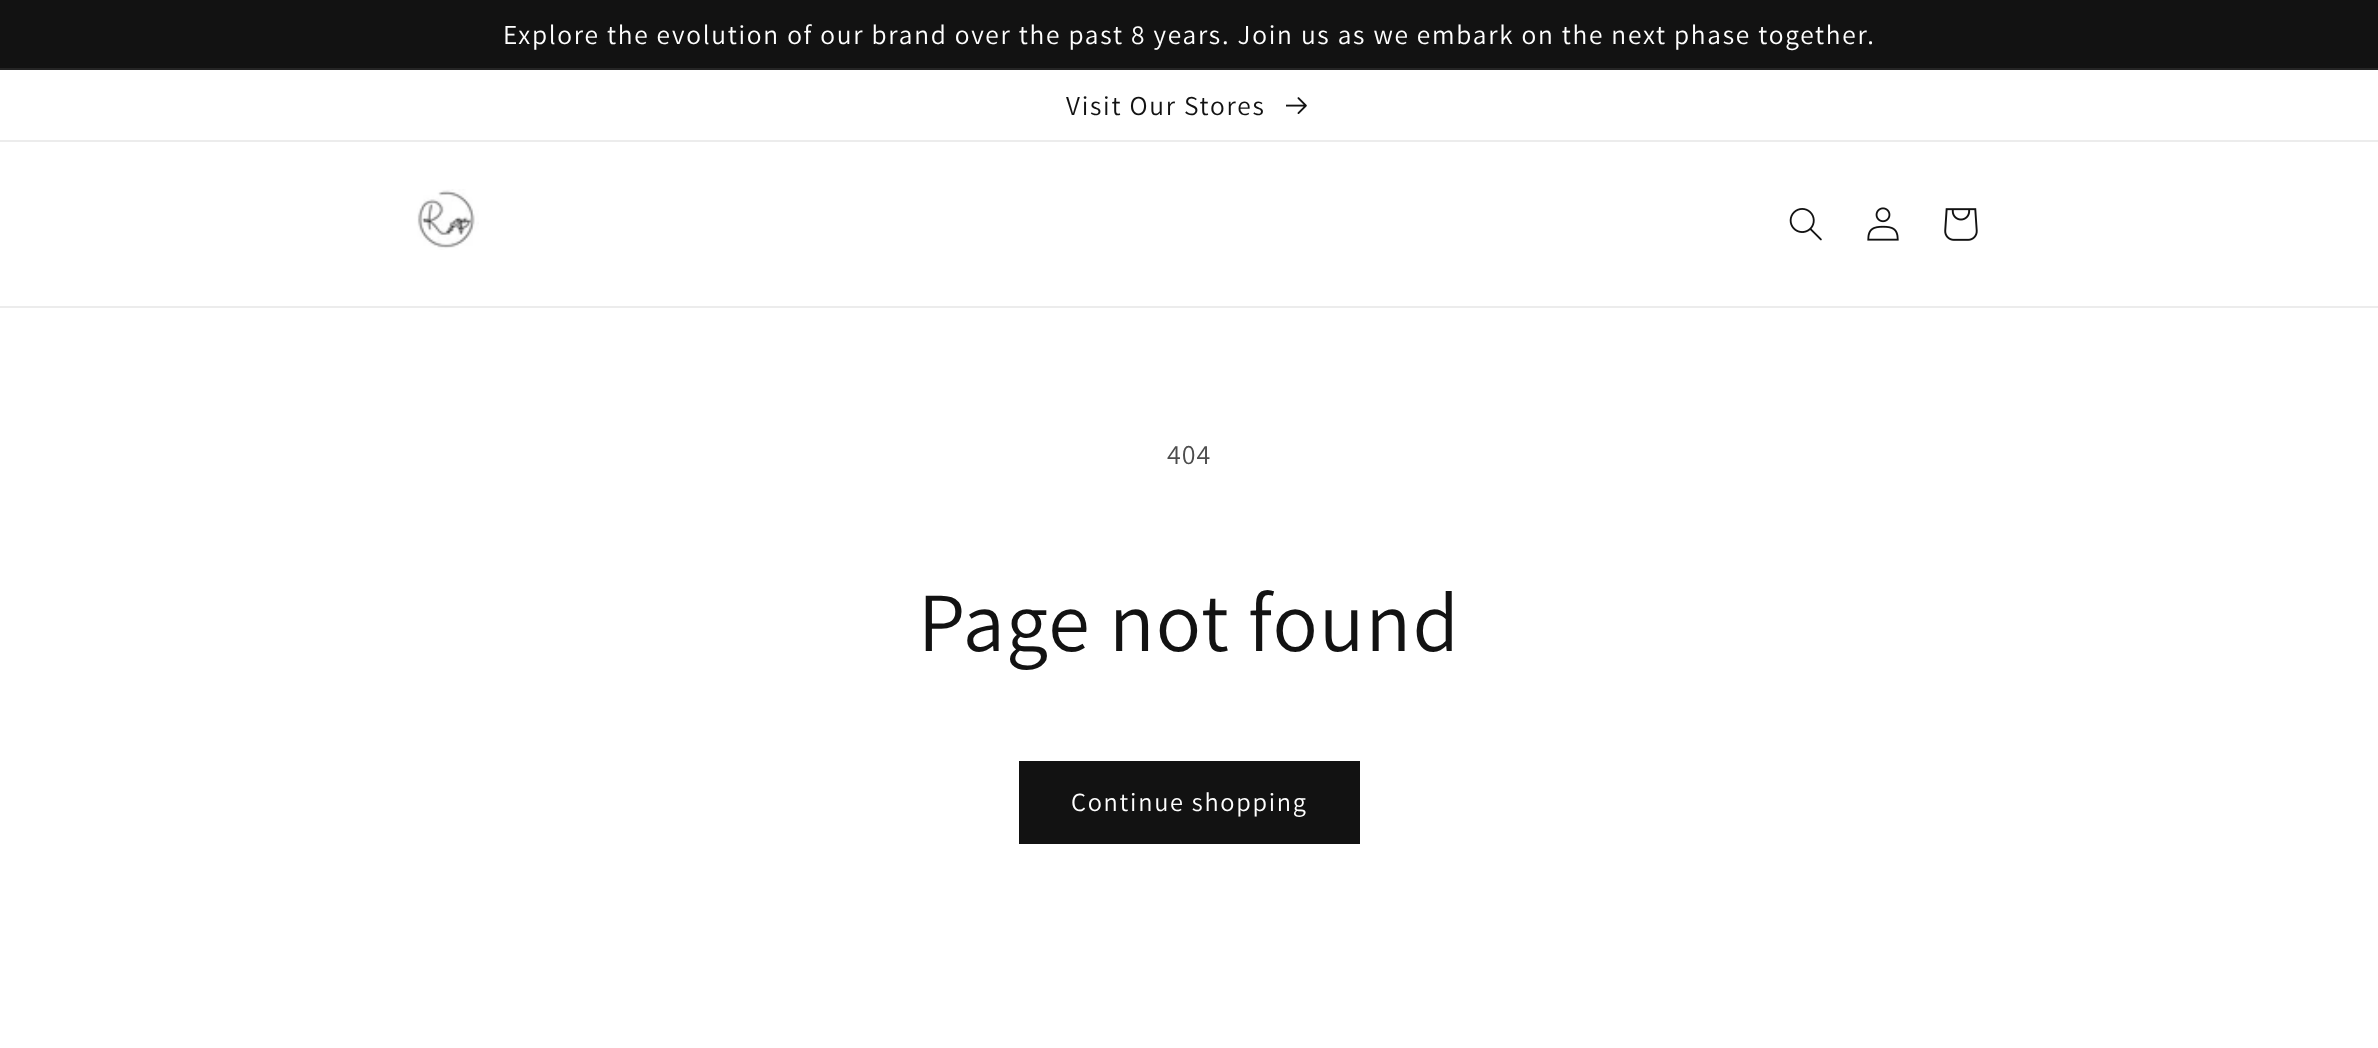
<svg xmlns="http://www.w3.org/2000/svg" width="2378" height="1048">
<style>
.a{font:27.3px Assistant;letter-spacing:1.75px;fill:#fff}
.b{font:27.3px Assistant;letter-spacing:1.75px;fill:#121212}
.c{font:28px Assistant;letter-spacing:1px;fill:#4d4d4d}
.d{font:84px Assistant;letter-spacing:1.25px;fill:#121212}
.e{font:26.25px Assistant;letter-spacing:1.75px;fill:#fff}
</style>
<rect width="100%" height="100%" fill="#fff"/>
<path fill="#121212" d="M0 0h2378v68H0z"/>
<path fill="#252525" d="M0 68h2378v2H0z"/>
<path fill="#ececec" d="M0 140h2378v2H0z"/>
<image href="1.png" x="1286" y="97" width="21" height="17"/>
<path fill="#ececec" d="M0 306h2378v2H0z"/>
<image href="2.png" x="417" y="189" width="62" height="61"/>
<image href="3.png" x="1789" y="208" width="33" height="33"/>
<image href="4.png" x="1867" y="207" width="32" height="34"/>
<image href="5.png" x="1944" y="208" width="34" height="33"/>
<path fill="#121212" d="M1019 761h341v83H1019z"/>
<text class="a" x="503" y="44">Explore the evolution of our brand over the past 8 years. Join us as we embark on the next phase together.</text>
<text class="b" x="1066" y="115">Visit Our Stores</text>
<text class="c" x="1167" y="464">404</text>
<text class="d" x="918" y="651">Page not found</text>
<text class="e" x="1071" y="811">Continue shopping</text>
</svg>
